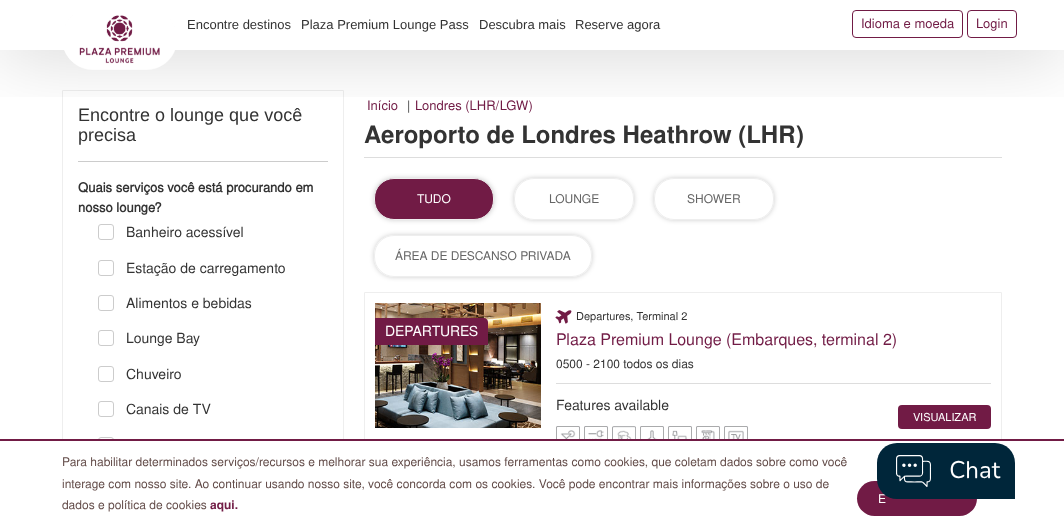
<svg xmlns="http://www.w3.org/2000/svg" width="1064" height="526">
<style>
.a{font:13px Liberation Sans;fill:#333}
.b{font:13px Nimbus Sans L;fill:#711b45}
.c{font:18px Liberation Sans;fill:#333}
.d{font:bold 13px Nimbus Sans L;fill:#333}
.e{font:14px Nimbus Sans L;fill:#333}
.f{font:13px Nimbus Sans L;fill:#333}
.g{font:bold 24px 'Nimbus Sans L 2';fill:#333}
.h{font:12px Nimbus Sans L;fill:#fff}
.i{font:12px Nimbus Sans L;fill:#666}
.j{font:14px Nimbus Sans L;fill:#fff}
.k{font:11px Nimbus Sans L;fill:#333}
.l{font:16px Nimbus Sans L;fill:#711b45}
.m{font:12px Nimbus Sans L;fill:#333}
.n{font:11px Nimbus Sans L;fill:#fff}
.o{font:12px Nimbus Sans L;fill:#634c49}
.p{font:bold 12px 'Nimbus Sans L 2';fill:#711b45}
</style>
<defs>
<clipPath id="clip1"><path d="M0 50h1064v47H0z"/></clipPath>
<clipPath id="clip2"><path d="M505 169h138v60h-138zm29 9h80c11 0 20 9 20 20v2c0 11-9 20-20 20h-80c-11 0-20-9-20-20v-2c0-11 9-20 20-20z" clip-rule="evenodd"/></clipPath>
<clipPath id="clip3"><path d="M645 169h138v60h-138zm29 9h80c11 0 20 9 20 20v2c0 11-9 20-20 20h-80c-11 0-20-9-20-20v-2c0-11 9-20 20-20z" clip-rule="evenodd"/></clipPath>
<clipPath id="clip4"><path d="M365 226h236v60h-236zm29 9h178c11 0 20 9 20 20v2c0 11-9 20-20 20h-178c-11 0-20-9-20-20v-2c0-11 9-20 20-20z" clip-rule="evenodd"/></clipPath>
</defs>
<rect width="100%" height="100%" fill="#fff"/>
<path fill="none" stroke="#eee" d="M62.5 90.5h281v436H62.5z"/>
<path fill="#ccc" d="M78 161h250v1H78z"/>
<path fill="#ddd" d="M364 157h638v1H364z"/>
<g clip-path="url(#clip1)">
<path fill="#00000033" filter="blur(37.5px)" d="M0 0h1064v50H0z"/>
</g>
<image href="1.png" x="64" y="15" width="111" height="55"/>
<rect fill="none" stroke="#711b45" x="852.5" y="10.5" width="110" height="27" rx="3.5"/>
<rect fill="none" stroke="#711b45" x="967.5" y="10.5" width="49" height="27" rx="3.5"/>
<rect fill="none" stroke="#ccc" x="98.5" y="224.5" width="15" height="15" rx="2.5"/>
<rect fill="none" stroke="#ccc" x="98.5" y="260.5" width="15" height="15" rx="2.5"/>
<rect fill="none" stroke="#ccc" x="98.5" y="295.5" width="15" height="15" rx="2.5"/>
<rect fill="none" stroke="#ccc" x="98.5" y="330.5" width="15" height="15" rx="2.5"/>
<rect fill="none" stroke="#ccc" x="98.5" y="366.5" width="15" height="15" rx="2.5"/>
<rect fill="none" stroke="#ccc" x="98.5" y="401.5" width="15" height="15" rx="2.5"/>
<rect fill="none" stroke="#ccc" x="98.5" y="437.5" width="15" height="15" rx="2.5"/>
<rect fill="#00000033" filter="blur(2.5px)" x="374" y="178" width="120" height="42" rx="20"/>
<rect fill="#711b45" stroke="#eee" x="374.5" y="178.5" width="119" height="41" rx="19.5"/>
<g clip-path="url(#clip2)">
<rect fill="#00000033" filter="blur(2.5px)" x="514" y="178" width="120" height="42" rx="20"/>
</g>
<rect fill="none" stroke="#eee" x="514.5" y="178.5" width="119" height="41" rx="19.5"/>
<g clip-path="url(#clip3)">
<rect fill="#00000033" filter="blur(2.5px)" x="654" y="178" width="120" height="42" rx="20"/>
</g>
<rect fill="none" stroke="#eee" x="654.5" y="178.5" width="119" height="41" rx="19.5"/>
<g clip-path="url(#clip4)">
<rect fill="#00000033" filter="blur(2.5px)" x="374" y="235" width="218" height="42" rx="20"/>
</g>
<rect fill="none" stroke="#eee" x="374.5" y="235.5" width="217" height="41" rx="19.5"/>
<path fill="none" stroke="#eee" d="M364.5 292.5h637v200H364.5z"/>
<image href="2.png" x="375" y="303" width="166" height="125"/>
<path fill="#711b45" d="M375 318h109c2 0 4 2 4 4v23h-113z"/>
<image href="3.png" x="555" y="310" width="17" height="14"/>
<path fill="#ddd" d="M556 383h435v1H556z"/>
<image href="4.png" x="556" y="426" width="24" height="13"/>
<image href="5.png" x="584" y="426" width="24" height="13"/>
<image href="6.png" x="612" y="426" width="24" height="13"/>
<image href="7.png" x="640" y="426" width="24" height="13"/>
<image href="8.png" x="668" y="426" width="24" height="13"/>
<image href="9.png" x="696" y="426" width="24" height="13"/>
<image href="10.png" x="724" y="426" width="24" height="13"/>
<rect fill="#711b45" x="898" y="405" width="93" height="24" rx="4"/>
<path fill="#fff" d="M62 441h940v85H62z"/>
<path fill="#711b45" d="M0 439h1064v2H0z"/>
<rect fill="#711b45" x="857" y="481" width="120" height="35" rx="17.5"/>
<text class="a" x="187" y="29">Encontre destinos</text>
<text class="a" x="301" y="29">Plaza Premium Lounge Pass</text>
<text class="a" x="479" y="29">Descubra mais</text>
<text class="a" x="575" y="29">Reserve agora</text>
<text class="b" x="861" y="28">Idioma e moeda</text>
<text class="b" x="976" y="28">Login</text>
<text class="c" x="78" y="121">Encontre o lounge que você</text>
<text class="c" x="78" y="141">precisa</text>
<text class="d" x="78" y="192">Quais serviços você está procurando em</text>
<text class="d" x="78" y="212">nosso lounge?</text>
<text class="e" x="126" y="237">Banheiro acessível</text>
<text class="e" x="126" y="273">Estação de carregamento</text>
<text class="e" x="126" y="308">Alimentos e bebidas</text>
<text class="e" x="126" y="343">Lounge Bay</text>
<text class="e" x="126" y="379">Chuveiro</text>
<text class="e" x="126" y="414">Canais de TV</text>
<text class="b" x="367" y="110">Início</text>
<text class="f" x="407" y="110">|</text>
<text class="b" x="415" y="110">Londres (LHR/LGW)</text>
<text class="g" x="364" y="143">Aeroporto de Londres Heathrow (LHR)</text>
<text class="h" x="417" y="203">TUDO</text>
<text class="i" x="549" y="203">LOUNGE</text>
<text class="i" x="687" y="203">SHOWER</text>
<text class="i" x="395" y="260">ÁREA DE DESCANSO PRIVADA</text>
<text class="j" x="385" y="336">DEPARTURES</text>
<text class="k" x="576" y="320">Departures, Terminal 2</text>
<text class="l" x="556" y="345">Plaza Premium Lounge (Embarques, terminal 2)</text>
<text class="m" x="556" y="368">0500 - 2100 todos os dias</text>
<text class="e" x="556" y="410">Features available</text>
<text class="n" x="913" y="421">VISUALIZAR</text>
<text class="o" x="62" y="466">Para habilitar determinados serviços/recursos e melhorar sua experiência, usamos ferramentas como cookies, que coletam dados sobre como você</text>
<text class="o" x="62" y="488">interage com nosso site. Ao continuar usando nosso site, você concorda com os cookies. Você pode encontrar mais informações sobre o uso de</text>
<text class="o" x="62" y="509">dados e política de cookies</text>
<text class="p" x="210" y="509">aqui.</text>
<text class="h" x="878" y="503">E</text>
<image href="11.png" x="877" y="443" width="138" height="56"/>
</svg>
